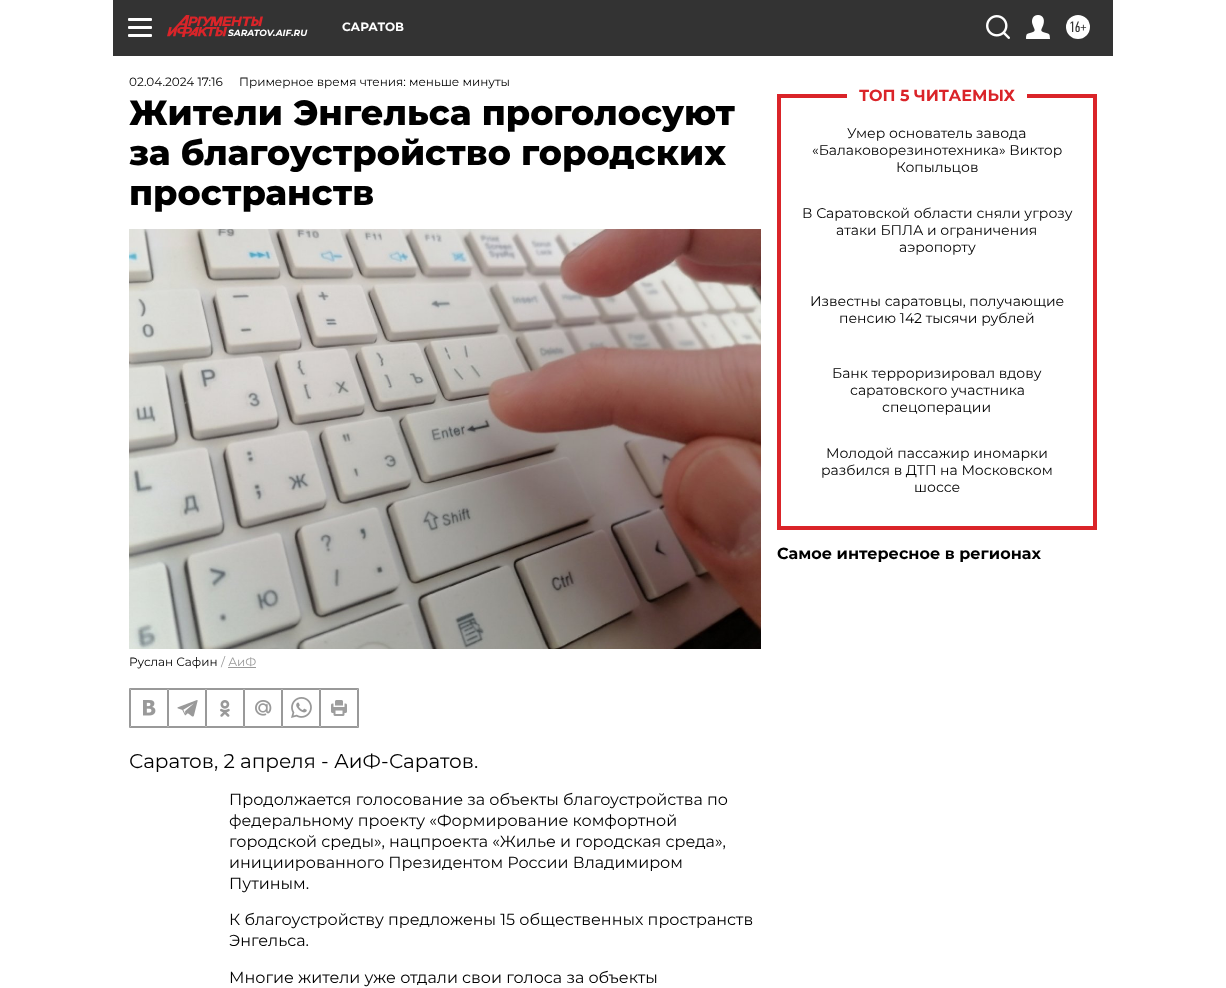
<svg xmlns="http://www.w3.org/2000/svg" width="1226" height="988">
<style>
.a{font:bold 12px Montserrat;fill:#fff}
.b{font:15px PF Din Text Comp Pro;fill:#333}
.c{font:italic bold 9px Montserrat;fill:#fff}
.d{font:12px Montserrat;fill:#000}
.e{font:800 35px Montserrat;fill:#000}
.f{font:12px Montserrat;fill:#999}
.g{font:20px Montserrat;fill:#000}
.h{font:16px Montserrat;fill:#000}
.i{font:bold 16px Montserrat;fill:#da2429}
.j{font:14px Montserrat;fill:#000}
.k{font:bold 16px Montserrat;fill:#000}
</style>
<rect width="100%" height="100%" fill="#fff"/>
<path fill="#333" d="M113 0h1000v56H113z"/>
<rect fill="#fff" x="128" y="18" width="24" height="3" rx="1"/>
<rect fill="#fff" x="128" y="26" width="24" height="3" rx="1"/>
<rect fill="#fff" x="128" y="34" width="24" height="3" rx="1"/>
<image href="1.png" x="986" y="15" width="24" height="24"/>
<image href="2.png" x="1026" y="15" width="24" height="24"/>
<circle fill="#fff" cx="1078" cy="27" r="12"/>
<image href="3.png" x="167" y="15" width="96" height="22"/>
<image href="4.png" x="129" y="229" width="632" height="420"/>
<path fill="#999" d="M228 667h28v1H228z"/>
<path fill="none" stroke="#999" d="M129.5 688.5h229v39H129.5z"/>
<path fill="none" stroke="#999" d="M130.5 689.5h37v37H130.5z"/>
<image href="5.png" x="143" y="700" width="13" height="16"/>
<path fill="none" stroke="#999" d="M168.5 689.5h37v37H168.5z"/>
<image href="6.png" x="177" y="700" width="21" height="17"/>
<path fill="none" stroke="#999" d="M206.5 689.5h37v37H206.5z"/>
<image href="7.png" x="220" y="700" width="10" height="17"/>
<path fill="none" stroke="#999" d="M244.5 689.5h37v37H244.5z"/>
<image href="8.png" x="255" y="700" width="17" height="16"/>
<path fill="none" stroke="#999" d="M282.5 689.5h37v37H282.5z"/>
<image href="9.png" x="291" y="697" width="21" height="21"/>
<path fill="none" stroke="#999" d="M320.5 689.5h37v37H320.5z"/>
<image href="10.png" x="331" y="700" width="16" height="16"/>
<path fill="#da2429" d="M1093 94h4v436H1093z"/>
<path fill="#da2429" d="M777 526h320v4H777z"/>
<path fill="#da2429" d="M777 94h4v436H777z"/>
<path fill="#da2429" d="M777 94h70v4H777z"/>
<path fill="#da2429" d="M1027 94h70v4H1027z"/>
<text class="a" x="342" y="31">САРАТОВ</text>
<text class="b" x="1069" y="32">16+</text>
<text class="c" x="228" y="36">SARATOV.AIF.RU</text>
<text class="d" x="129" y="86">02.04.2024 17:16</text>
<text class="d" x="239" y="86">Примерное время чтения: меньше минуты</text>
<text class="e" x="129" y="125">Жители Энгельса проголосуют</text>
<text class="e" x="129" y="165">за благоустройство городских</text>
<text class="e" x="129" y="205">пространств</text>
<text class="d" x="129" y="666">Руслан Сафин</text>
<text class="f" x="221" y="666">/ АиФ</text>
<text class="g" x="129" y="768">Саратов, 2 апреля - АиФ-Саратов.</text>
<text class="h" x="229" y="805">Продолжается голосование за объекты благоустройства по</text>
<text class="h" x="229" y="826">федеральному проекту «Формирование комфортной</text>
<text class="h" x="229" y="847">городской среды», нацпроекта «Жилье и городская среда»,</text>
<text class="h" x="229" y="868">инициированного Президентом России Владимиром</text>
<text class="h" x="229" y="889">Путиным.</text>
<text class="h" x="229" y="925">К благоустройству предложены 15 общественных пространств</text>
<text class="h" x="229" y="946">Энгельса.</text>
<text class="h" x="229" y="983">Многие жители уже отдали свои голоса за объекты</text>
<text class="i" x="859" y="101">ТОП 5 ЧИТАЕМЫХ</text>
<text class="j" x="847" y="138">Умер основатель завода</text>
<text class="j" x="812" y="155">«Балаковорезинотехника» Виктор</text>
<text class="j" x="896" y="172">Копыльцов</text>
<text class="j" x="802" y="218">В Саратовской области сняли угрозу</text>
<text class="j" x="836" y="235">атаки БПЛА и ограничения</text>
<text class="j" x="899" y="252">аэропорту</text>
<text class="j" x="810" y="306">Известны саратовцы, получающие</text>
<text class="j" x="839" y="323">пенсию 142 тысячи рублей</text>
<text class="j" x="832" y="378">Банк терроризировал вдову</text>
<text class="j" x="850" y="395">саратовского участника</text>
<text class="j" x="882" y="412">спецоперации</text>
<text class="j" x="826" y="458">Молодой пассажир иномарки</text>
<text class="j" x="821" y="475">разбился в ДТП на Московском</text>
<text class="j" x="914" y="492">шоссе</text>
<text class="k" x="777" y="559">Самое интересное в регионах</text>
</svg>
